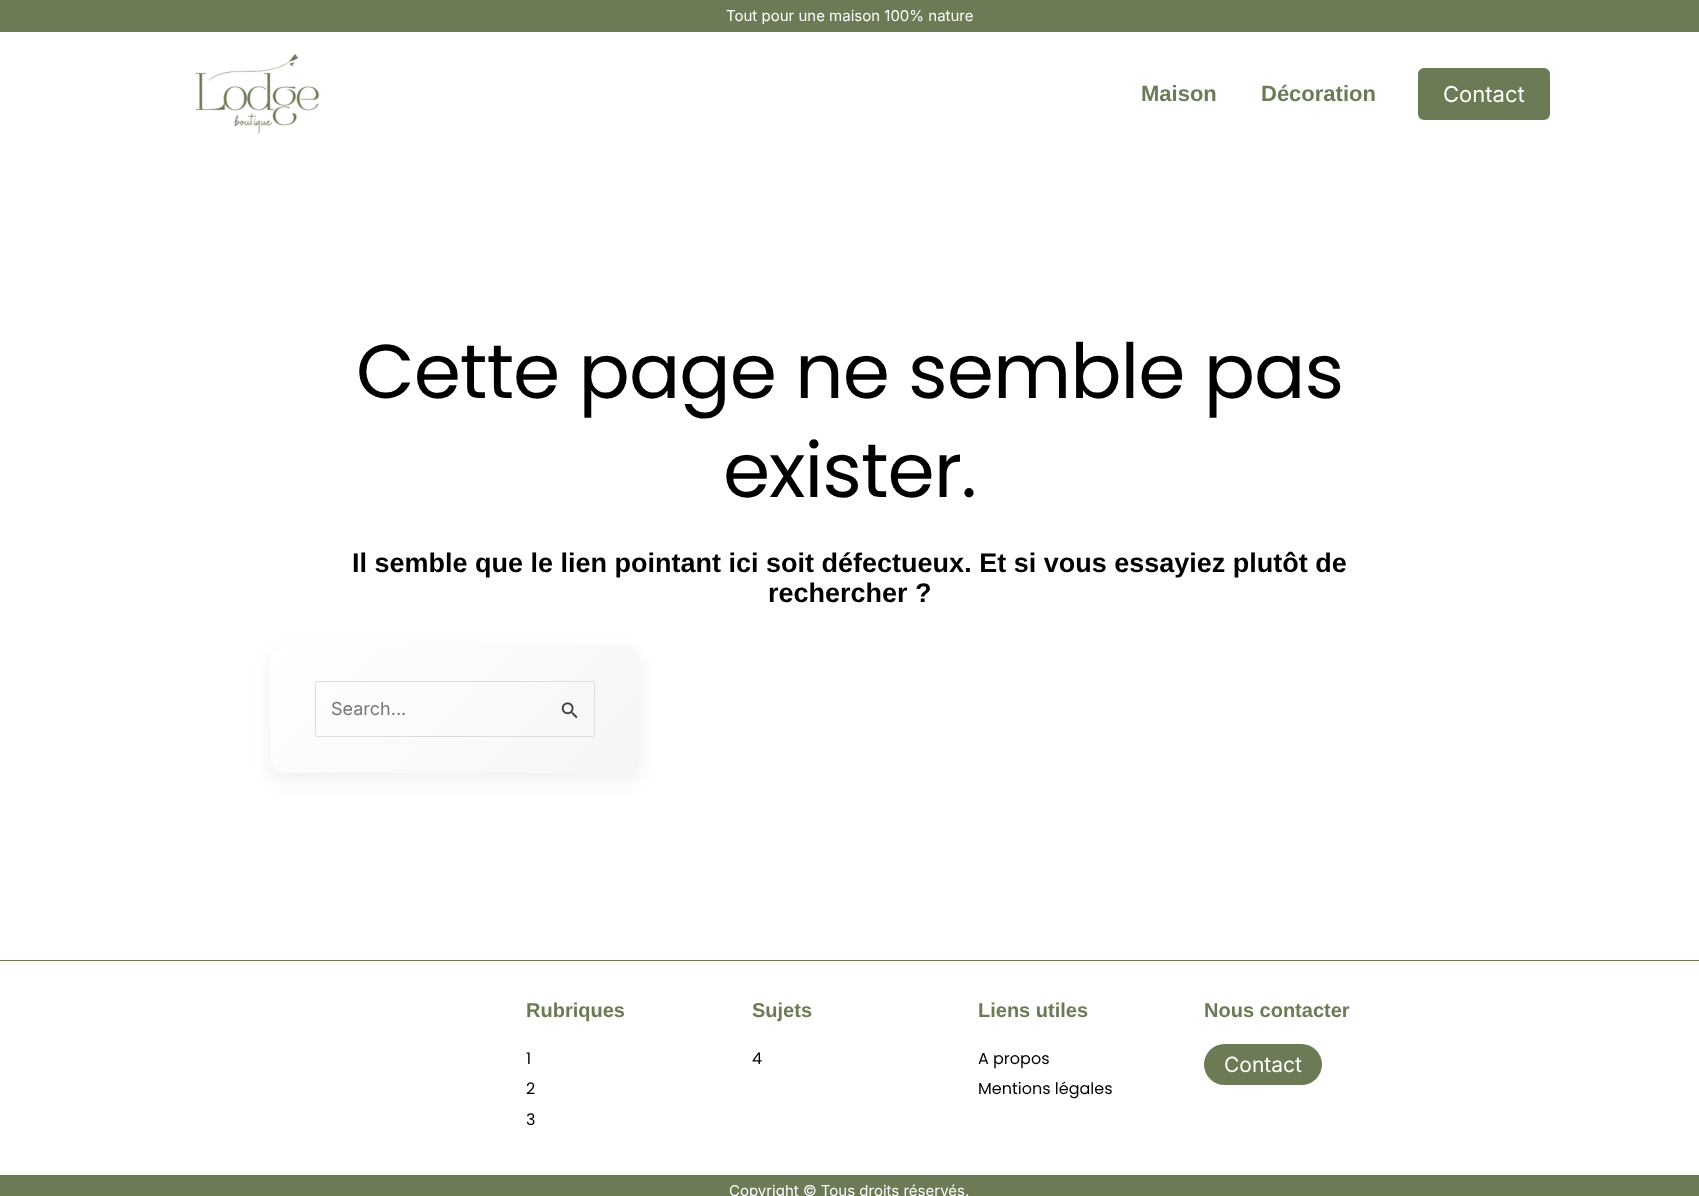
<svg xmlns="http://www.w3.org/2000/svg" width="1699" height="1196">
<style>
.a{font:15px Inter;fill:#fefefe}
.b{font:bold 22px Liberation Sans;fill:#6c7b55}
.c{font:22px Inter;fill:#fefefe}
.d{font:76px Poppins;letter-spacing:-1px;fill:#000}
.e{font:bold 27px Liberation Sans;fill:#000}
.f{font:18px Inter;fill:#757575}
.g{font:bold 20px Liberation Sans;fill:#6c7b55}
.h{font:16px Poppins;fill:#000}
.i{font:21px Inter;fill:#fefefe}
</style>
<defs>
<linearGradient id="g1" gradientUnits="userSpaceOnUse" x1="331" y1="585" x2="580" y2="834"><stop offset="0" stop-color="#fff"/><stop offset="1" stop-color="#f5f5f5"/></linearGradient>
</defs>
<rect width="100%" height="100%" fill="#fff"/>
<path fill="#6c7b55" d="M0 0h1699v32H0z"/>
<image href="1.png" x="195" y="54" width="125" height="81"/>
<rect fill="#6c7b55" x="1418" y="68" width="132" height="52" rx="6"/>
<rect fill="#0000000f" filter="blur(10px)" x="270" y="653" width="370" height="128" rx="16"/>
<rect fill="url(#g1)" x="270" y="645" width="370" height="128" rx="16"/>
<rect fill="none" stroke="#ddd" x="315.5" y="681.5" width="279" height="55" rx="1.5"/>
<image href="2.png" x="561" y="702" width="17" height="17"/>
<path fill="#6c7b55" d="M0 960h1699v1H0z"/>
<rect fill="#6c7b55" x="1204" y="1044" width="118" height="41" rx="20.5"/>
<path fill="#6c7b55" d="M0 1175h1699v21H0z"/>
<text class="a" x="726" y="21">Tout pour une maison 100% nature</text>
<text class="b" x="1141" y="101">Maison</text>
<text class="b" x="1261" y="101">Décoration</text>
<text class="c" x="1443" y="102">Contact</text>
<text class="d" x="356" y="398">Cette page ne semble pas</text>
<text class="d" x="723" y="497">exister.</text>
<text class="e" x="352" y="572">Il semble que le lien pointant ici soit défectueux. Et si vous essayiez plutôt de</text>
<text class="e" x="768" y="602">rechercher ?</text>
<text class="f" x="331" y="715">Search...</text>
<text class="g" x="526" y="1017">Rubriques</text>
<text class="h" x="526" y="1064">1</text>
<text class="h" x="526" y="1094">2</text>
<text class="h" x="526" y="1125">3</text>
<text class="g" x="752" y="1017">Sujets</text>
<text class="h" x="752" y="1064">4</text>
<text class="g" x="978" y="1017">Liens utiles</text>
<text class="h" x="978" y="1064">A propos</text>
<text class="h" x="978" y="1094">Mentions légales</text>
<text class="g" x="1204" y="1017">Nous contacter</text>
<text class="i" x="1224" y="1072">Contact</text>
<text class="a" x="729" y="1196">Copyright © Tous droits réservés.</text>
</svg>
